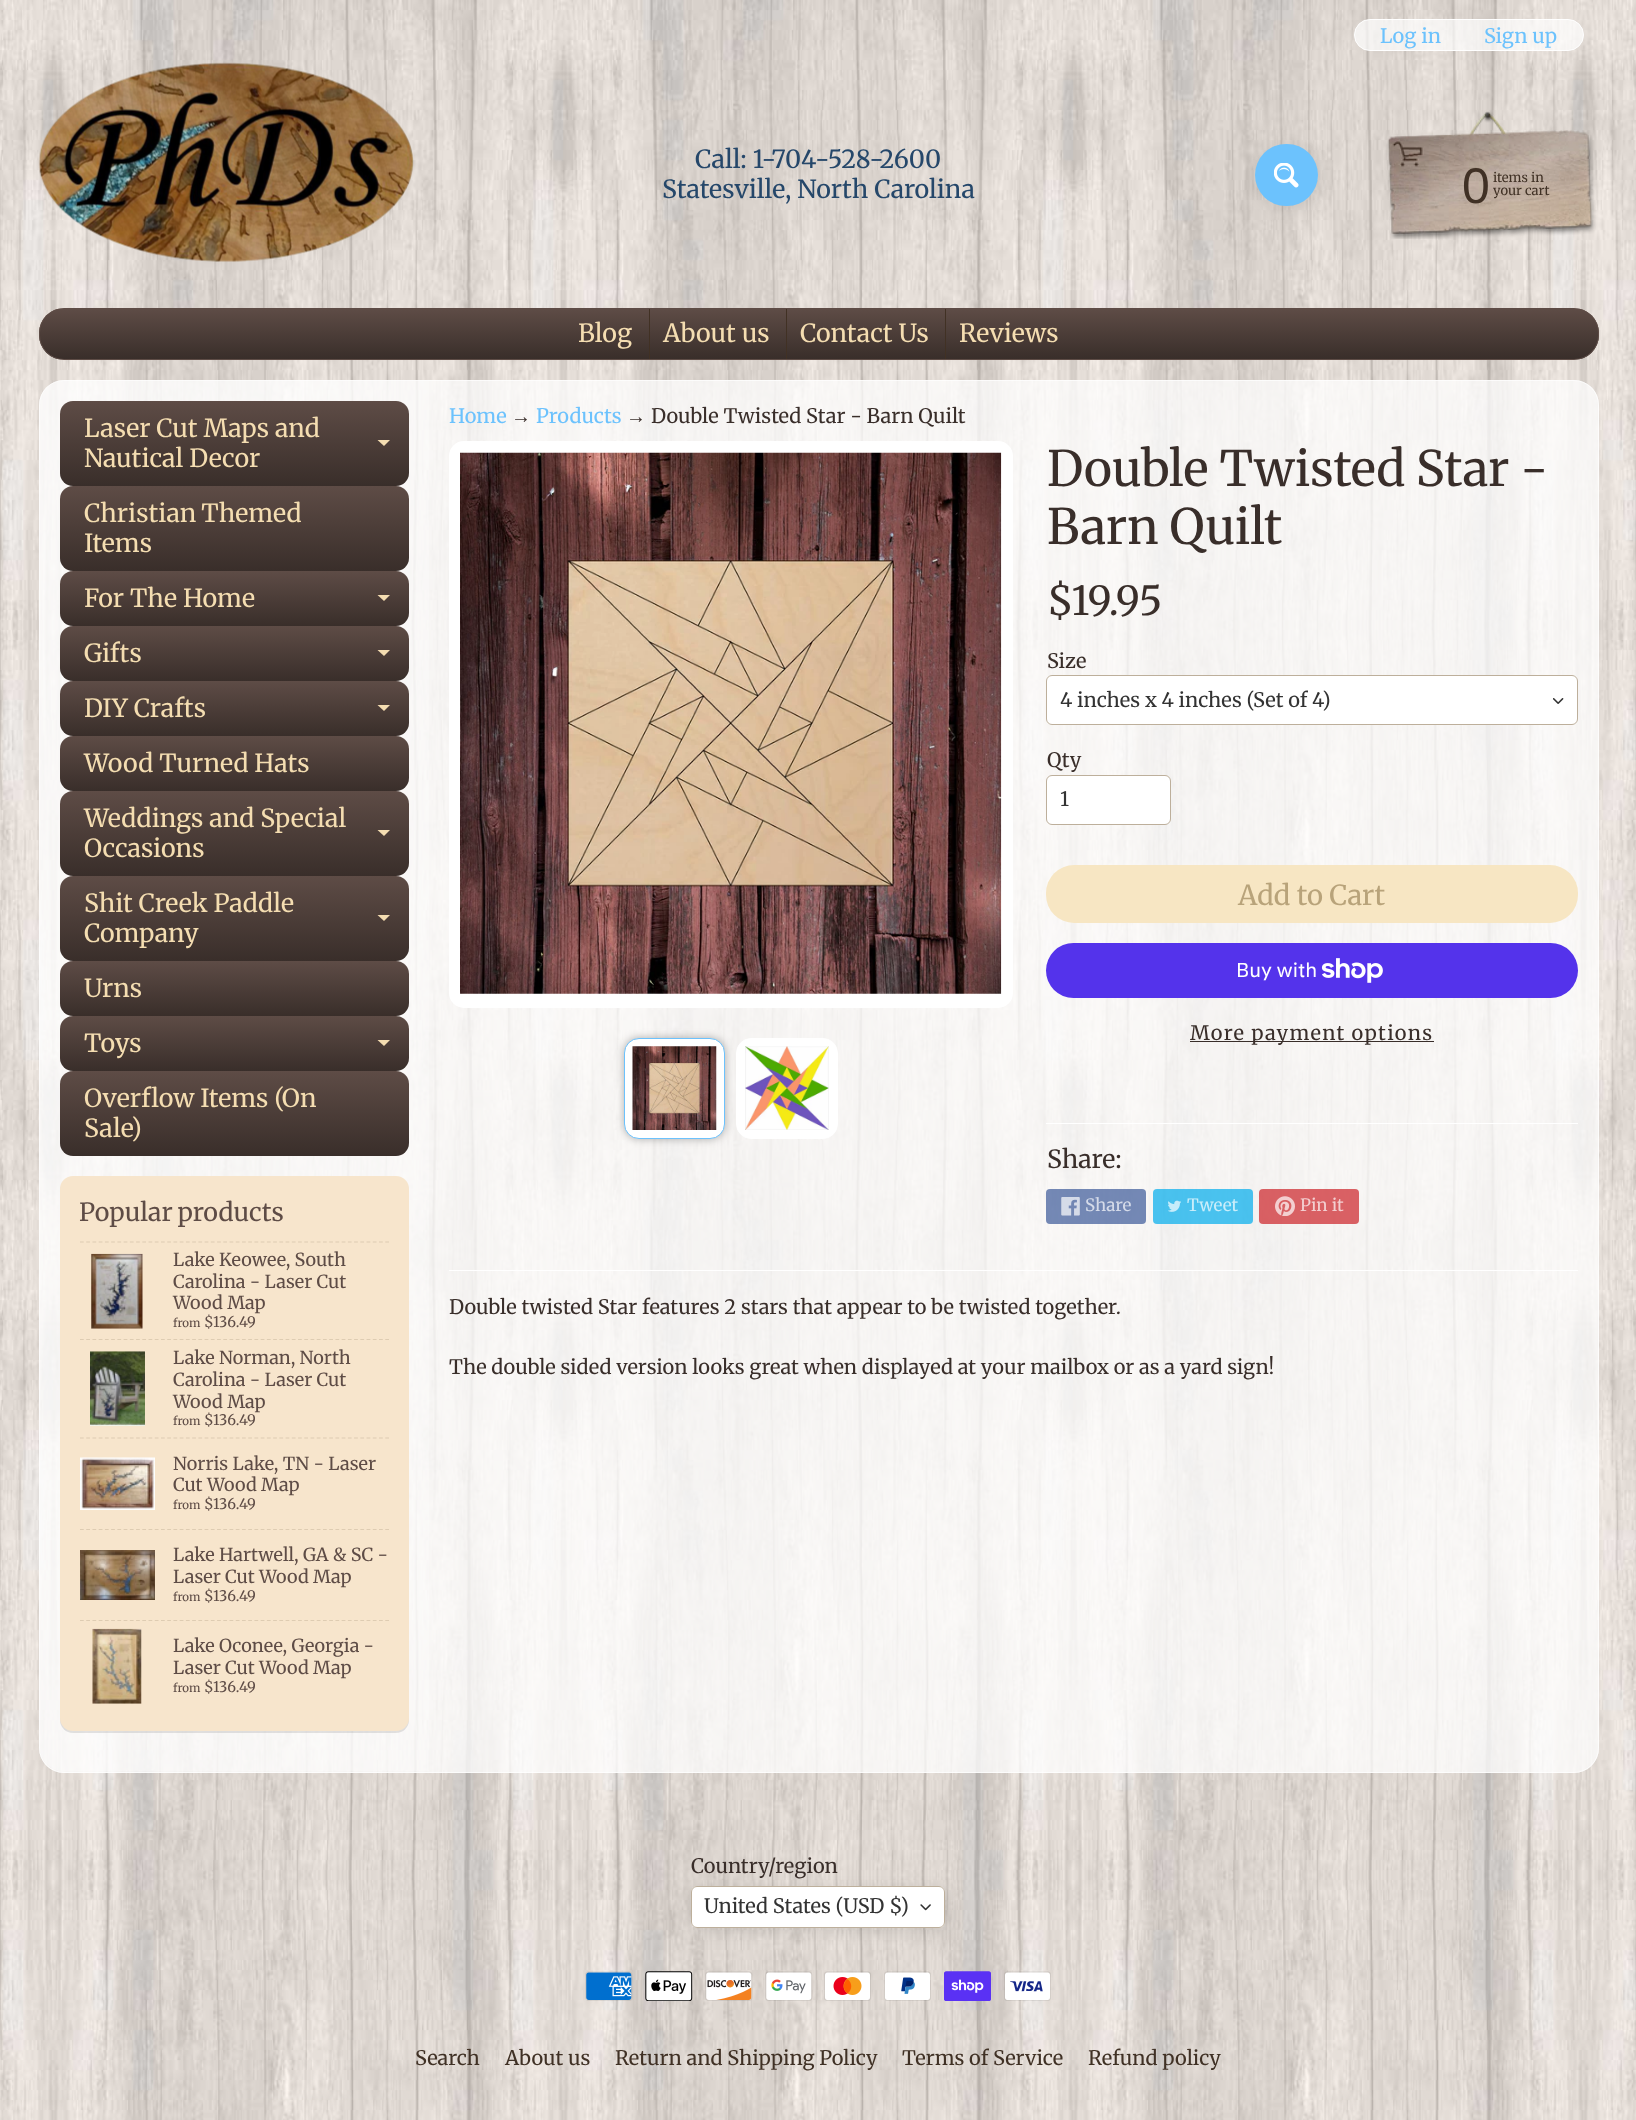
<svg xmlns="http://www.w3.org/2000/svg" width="1636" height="2120">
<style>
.a{font:25px Merriweather;fill:#25476a}
.b{font:20px Merriweather;fill:#6cc2fd}
.c{font:50px Liberation Sans;fill:#403125}
.d{font:13px Merriweather;fill:#403125}
.e{font:25px Merriweather;fill:#f4ddb1}
.f{font:25px Merriweather;fill:#5e4c46}
.g{font:18px Merriweather;fill:#5e4c46}
.h{font:11.5px Merriweather;fill:#5e4c46}
.i{font:14.5px Merriweather;fill:#5e4c46}
.j{font:20px Liberation Serif;fill:#392e2a}
.k{font:20px Merriweather;fill:#392e2a}
.l{font:48.75px 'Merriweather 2';fill:#392e2a}
.m{font:40px 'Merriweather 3';fill:#392e2a}
.n{font:20px Merriweather;fill:#333}
.o{font:27.5px 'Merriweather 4';fill:#b8a37a}
.p{font:20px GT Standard;fill:#fff}
.q{font:20px Merriweather;letter-spacing:1.25px;fill:#392e2a}
.r{font:25px Merriweather;fill:#392e2a}
.s{font:17px Merriweather;fill:#d5dbe9}
.t{font:17px Merriweather;fill:#c9edfa}
.u{font:17px Merriweather;fill:#f3cfd1}
.v{font:20px Merriweather;fill:#403125}
</style>
<defs>
<clipPath id="clip1"><rect x="39" y="308" width="1560" height="52" rx="25"/></clipPath>
<linearGradient id="g1" gradientUnits="userSpaceOnUse" x1="819" y1="309" x2="819" y2="359"><stop offset="0" stop-color="#5e4c46"/><stop offset="1" stop-color="#392e2a"/></linearGradient>
<linearGradient id="g2" gradientUnits="userSpaceOnUse" x1="234" y1="401" x2="234" y2="486"><stop offset="0" stop-color="#5e4c46"/><stop offset="1" stop-color="#392e2a"/></linearGradient>
<linearGradient id="g3" gradientUnits="userSpaceOnUse" x1="234" y1="486" x2="234" y2="571"><stop offset="0" stop-color="#5e4c46"/><stop offset="1" stop-color="#392e2a"/></linearGradient>
<linearGradient id="g4" gradientUnits="userSpaceOnUse" x1="234" y1="571" x2="234" y2="626"><stop offset="0" stop-color="#5e4c46"/><stop offset="1" stop-color="#392e2a"/></linearGradient>
<linearGradient id="g5" gradientUnits="userSpaceOnUse" x1="234" y1="626" x2="234" y2="681"><stop offset="0" stop-color="#5e4c46"/><stop offset="1" stop-color="#392e2a"/></linearGradient>
<linearGradient id="g6" gradientUnits="userSpaceOnUse" x1="234" y1="681" x2="234" y2="736"><stop offset="0" stop-color="#5e4c46"/><stop offset="1" stop-color="#392e2a"/></linearGradient>
<linearGradient id="g7" gradientUnits="userSpaceOnUse" x1="234" y1="736" x2="234" y2="791"><stop offset="0" stop-color="#5e4c46"/><stop offset="1" stop-color="#392e2a"/></linearGradient>
<linearGradient id="g8" gradientUnits="userSpaceOnUse" x1="234" y1="791" x2="234" y2="876"><stop offset="0" stop-color="#5e4c46"/><stop offset="1" stop-color="#392e2a"/></linearGradient>
<linearGradient id="g9" gradientUnits="userSpaceOnUse" x1="234" y1="876" x2="234" y2="961"><stop offset="0" stop-color="#5e4c46"/><stop offset="1" stop-color="#392e2a"/></linearGradient>
<linearGradient id="g10" gradientUnits="userSpaceOnUse" x1="234" y1="961" x2="234" y2="1016"><stop offset="0" stop-color="#5e4c46"/><stop offset="1" stop-color="#392e2a"/></linearGradient>
<linearGradient id="g11" gradientUnits="userSpaceOnUse" x1="234" y1="1016" x2="234" y2="1071"><stop offset="0" stop-color="#5e4c46"/><stop offset="1" stop-color="#392e2a"/></linearGradient>
<linearGradient id="g12" gradientUnits="userSpaceOnUse" x1="234" y1="1071" x2="234" y2="1156"><stop offset="0" stop-color="#5e4c46"/><stop offset="1" stop-color="#392e2a"/></linearGradient>
</defs>
<rect width="100%" height="100%" fill="#fff"/>
<image href="1.png" x="0" y="0" width="1636" height="2120"/>
<image href="2.png" x="38" y="62" width="376" height="217"/>
<rect fill="#ffffffb3" stroke="#fff" x="1354.5" y="19.5" width="229" height="31" rx="15.5"/>
<rect fill="#0000001a" filter="blur(7.5px)" x="1259" y="148" width="62" height="62" rx="31"/>
<rect fill="#6cc2fd" x="1255" y="144" width="63" height="62" rx="31"/>
<image href="3.png" x="1274" y="163" width="25" height="25"/>
<image href="4.png" x="1386" y="111" width="210" height="128"/>
<g clip-path="url(#clip1)">
<path fill="url(#g1)" d="M39 309h1560v50H39z"/>
</g>
<rect fill="none" stroke="#5e4c46" x="39.5" y="308.5" width="1559" height="51" rx="24.5"/>
<path fill="#413124" d="M649 309h1v50H649z"/>
<path fill="#413124" d="M786 309h1v50H786z"/>
<path fill="#413124" d="M945 309h1v50H945z"/>
<rect fill="#ffffffbf" x="39" y="380" width="1560" height="1393" rx="25"/>
<rect fill="none" stroke="#ffffffb3" x="39.5" y="380.5" width="1559" height="1392" rx="24.5"/>
<path fill="#ffffff40" d="M64 381h365v1390h-365c-13.5 0-24-10.5-24-24v-1342c0-13.5 10.5-24 24-24z"/>
<rect fill="url(#g2)" x="60" y="401" width="349" height="85" rx="13"/>
<path fill="#f4ddb1" d="M377.5 440h12.5l-6 6z"/>
<rect fill="url(#g3)" x="60" y="486" width="349" height="85" rx="13"/>
<rect fill="url(#g4)" x="60" y="571" width="349" height="55" rx="13"/>
<path fill="#f4ddb1" d="M377.5 595h12.5l-6 6z"/>
<rect fill="url(#g5)" x="60" y="626" width="349" height="55" rx="13"/>
<path fill="#f4ddb1" d="M377.5 650h12.5l-6 6z"/>
<rect fill="url(#g6)" x="60" y="681" width="349" height="55" rx="13"/>
<path fill="#f4ddb1" d="M377.5 705h12.5l-6 6z"/>
<rect fill="url(#g7)" x="60" y="736" width="349" height="55" rx="13"/>
<rect fill="url(#g8)" x="60" y="791" width="349" height="85" rx="13"/>
<path fill="#f4ddb1" d="M377.5 830h12.5l-6 6z"/>
<rect fill="url(#g9)" x="60" y="876" width="349" height="85" rx="13"/>
<path fill="#f4ddb1" d="M377.5 915h12.5l-6 6z"/>
<rect fill="url(#g10)" x="60" y="961" width="349" height="55" rx="13"/>
<rect fill="url(#g11)" x="60" y="1016" width="349" height="55" rx="13"/>
<path fill="#f4ddb1" d="M377.5 1040h12.5l-6 6z"/>
<rect fill="url(#g12)" x="60" y="1071" width="349" height="85" rx="13"/>
<rect fill="#0000001a" filter="blur(0.5px)" x="60" y="1178" width="349" height="555" rx="13"/>
<rect fill="#f7e5cc" x="60" y="1176" width="349" height="555" rx="13"/>
<path fill="none" stroke="#deccb2" stroke-width="1.2" stroke-dasharray="3.75 2.48" d="M80 1242h309"/>
<image href="5.png" x="91" y="1253" width="52" height="76"/>
<path fill="none" stroke="#deccb2" stroke-width="1.2" stroke-dasharray="3.75 2.48" d="M80 1339.5h309"/>
<image href="6.png" x="90" y="1351" width="55" height="75"/>
<path fill="none" stroke="#deccb2" stroke-width="1.2" stroke-dasharray="3.75 2.48" d="M80 1438h309"/>
<image href="7.png" x="80" y="1457" width="75" height="53"/>
<path fill="none" stroke="#deccb2" stroke-width="1.2" stroke-dasharray="3.75 2.48" d="M80 1529.5h309"/>
<image href="8.png" x="80" y="1550" width="75" height="50"/>
<path fill="none" stroke="#deccb2" stroke-width="1.2" stroke-dasharray="3.75 2.48" d="M80 1620.5h309"/>
<image href="9.png" x="92" y="1628" width="50" height="76"/>
<rect fill="#fff" x="449" y="441" width="564" height="567" rx="15"/>
<image href="10.png" x="460" y="452" width="542" height="542"/>
<rect fill="#0000004d" filter="blur(4px)" x="624" y="1038" width="101" height="101" rx="15"/>
<rect fill="#fff" stroke="#6cc2fd" x="624.5" y="1038.5" width="100" height="100" rx="14.5"/>
<image href="11.png" x="632" y="1046" width="85" height="84"/>
<rect fill="#fff" stroke="#fff" x="736.5" y="1038.5" width="101" height="100" rx="14.5"/>
<image href="12.png" x="745" y="1046" width="84" height="84"/>
<rect fill="#fff" x="1046" y="675" width="532" height="50" rx="6"/>
<image href="13.png" x="1553" y="698" width="11" height="6"/>
<rect fill="none" stroke="#bdaf9b" x="1046.5" y="675.5" width="531" height="49" rx="5.5"/>
<rect fill="#fff" stroke="#bdaf9b" x="1046.5" y="775.5" width="124" height="49" rx="5.5"/>
<rect fill="#f7e6c3" x="1046" y="865" width="532" height="58" rx="28"/>
<rect fill="#5433eb" x="1046" y="943" width="532" height="55" rx="27.5"/>
<image href="14.png" x="1321" y="958" width="62" height="25"/>
<path fill="#392e2a" d="M1190 1041h244v1H1190z"/>
<path fill="#fff" d="M1046 1123h532v1H1046z"/>
<rect fill="#3b5998b3" x="1046" y="1189" width="100" height="35" rx="4"/>
<image href="15.png" x="1061" y="1197" width="19" height="19"/>
<rect fill="#00acedb3" x="1153" y="1189" width="100" height="35" rx="4"/>
<image href="16.png" x="1168" y="1200" width="13" height="12"/>
<rect fill="#cc2127b3" x="1259" y="1189" width="100" height="35" rx="4"/>
<image href="17.png" x="1275" y="1196" width="20" height="20"/>
<path fill="#fff" d="M449 1270h1129v1H449z"/>
<rect fill="#0000001a" filter="blur(7.5px)" x="695" y="1890" width="254" height="41" rx="6"/>
<rect fill="#fff" x="691" y="1886" width="254" height="42" rx="6"/>
<image href="18.png" x="920" y="1904" width="11" height="7"/>
<rect fill="none" stroke="#bdaf9b" x="691.5" y="1886.5" width="253" height="41" rx="5.5"/>
<image href="19.png" x="585" y="1971" width="48" height="30"/>
<image href="20.png" x="645" y="1971" width="48" height="30"/>
<image href="21.png" x="705" y="1971" width="48" height="30"/>
<image href="22.png" x="765" y="1971" width="48" height="30"/>
<image href="23.png" x="824" y="1971" width="47" height="30"/>
<image href="24.png" x="884" y="1971" width="47" height="30"/>
<image href="25.png" x="944" y="1971" width="47" height="30"/>
<image href="26.png" x="1004" y="1971" width="47" height="30"/>
<text class="a" x="695" y="168">Call: 1-704-528-2600</text>
<text class="a" x="662" y="198">Statesville, North Carolina</text>
<text class="b" x="1380" y="43">Log in</text>
<text class="b" x="1484" y="43">Sign up</text>
<text class="c" x="1462" y="203">0</text>
<text class="d" x="1493" y="182">items in</text>
<text class="d" x="1493" y="195">your cart</text>
<text class="e" x="578" y="342">Blog</text>
<text class="e" x="663" y="342">About us</text>
<text class="e" x="800" y="342">Contact Us</text>
<text class="e" x="959" y="342">Reviews</text>
<text class="e" x="84" y="437">Laser Cut Maps and</text>
<text class="e" x="84" y="467">Nautical Decor</text>
<text class="e" x="84" y="522" word-spacing="-1">Christian Themed</text>
<text class="e" x="84" y="552">Items</text>
<text class="e" x="84" y="607">For The Home</text>
<text class="e" x="84" y="662">Gifts</text>
<text class="e" x="84" y="717">DIY Crafts</text>
<text class="e" x="84" y="772">Wood Turned Hats</text>
<text class="e" x="84" y="827">Weddings and Special</text>
<text class="e" x="84" y="857">Occasions</text>
<text class="e" x="84" y="912">Shit Creek Paddle</text>
<text class="e" x="84" y="942">Company</text>
<text class="e" x="84" y="997">Urns</text>
<text class="e" x="84" y="1052">Toys</text>
<text class="e" x="84" y="1107">Overflow Items (On</text>
<text class="e" x="84" y="1137">Sale)</text>
<text class="f" x="79" y="1221" word-spacing="-1">Popular products</text>
<text class="g" x="173" y="1266">Lake Keowee, South</text>
<text class="g" x="173" y="1288">Carolina - Laser Cut</text>
<text class="g" x="173" y="1309">Wood Map</text>
<text class="h" x="173" y="1327">from</text>
<text class="i" x="204" y="1327">$136.49</text>
<text class="g" x="173" y="1364">Lake Norman, North</text>
<text class="g" x="173" y="1386">Carolina - Laser Cut</text>
<text class="g" x="173" y="1408">Wood Map</text>
<text class="h" x="173" y="1425">from</text>
<text class="i" x="204" y="1425">$136.49</text>
<text class="g" x="173" y="1470">Norris Lake, TN - Laser</text>
<text class="g" x="173" y="1491">Cut Wood Map</text>
<text class="h" x="173" y="1509">from</text>
<text class="i" x="204" y="1509">$136.49</text>
<text class="g" x="173" y="1561">Lake Hartwell, GA &amp; SC -</text>
<text class="g" x="173" y="1583">Laser Cut Wood Map</text>
<text class="h" x="173" y="1601">from</text>
<text class="i" x="204" y="1601">$136.49</text>
<text class="g" x="173" y="1652">Lake Oconee, Georgia -</text>
<text class="g" x="173" y="1674">Laser Cut Wood Map</text>
<text class="h" x="173" y="1692">from</text>
<text class="i" x="204" y="1692">$136.49</text>
<text class="b" x="449" y="423">Home</text>
<text class="j" x="511" y="423">→</text>
<text class="b" x="536" y="423">Products</text>
<text class="j" x="626" y="423">→</text>
<text class="k" x="651" y="423">Double Twisted Star - Barn Quilt</text>
<text class="l" x="1047" y="486">Double Twisted Star -</text>
<text class="l" x="1047" y="544">Barn Quilt</text>
<text class="m" x="1047" y="615">$19.95</text>
<text class="k" x="1047" y="668">Size</text>
<text class="n" x="1060" y="707">4 inches x 4 inches (Set of 4)</text>
<text class="k" x="1047" y="767">Qty</text>
<text class="n" x="1060" y="806">1</text>
<text class="o" x="1238" y="905">Add to Cart</text>
<text class="p" x="1236" y="977">Buy with</text>
<text class="q" x="1190" y="1040">More payment options</text>
<text class="r" x="1047" y="1168">Share:</text>
<text class="s" x="1085" y="1211">Share</text>
<text class="t" x="1187" y="1211">Tweet</text>
<text class="u" x="1300" y="1211">Pin it</text>
<text class="k" x="449" y="1314">Double twisted Star features 2 stars that appear to be twisted together.</text>
<text class="k" x="449" y="1374">The double sided version looks great when displayed at your mailbox or as a yard sign!</text>
<text class="k" x="691" y="1873">Country/region</text>
<text class="n" x="704" y="1913">United States (USD $)</text>
<text class="v" x="415" y="2065">Search</text>
<text class="v" x="505" y="2065">About us</text>
<text class="v" x="615" y="2065">Return and Shipping Policy</text>
<text class="v" x="902" y="2065">Terms of Service</text>
<text class="v" x="1088" y="2065">Refund policy</text>
</svg>
